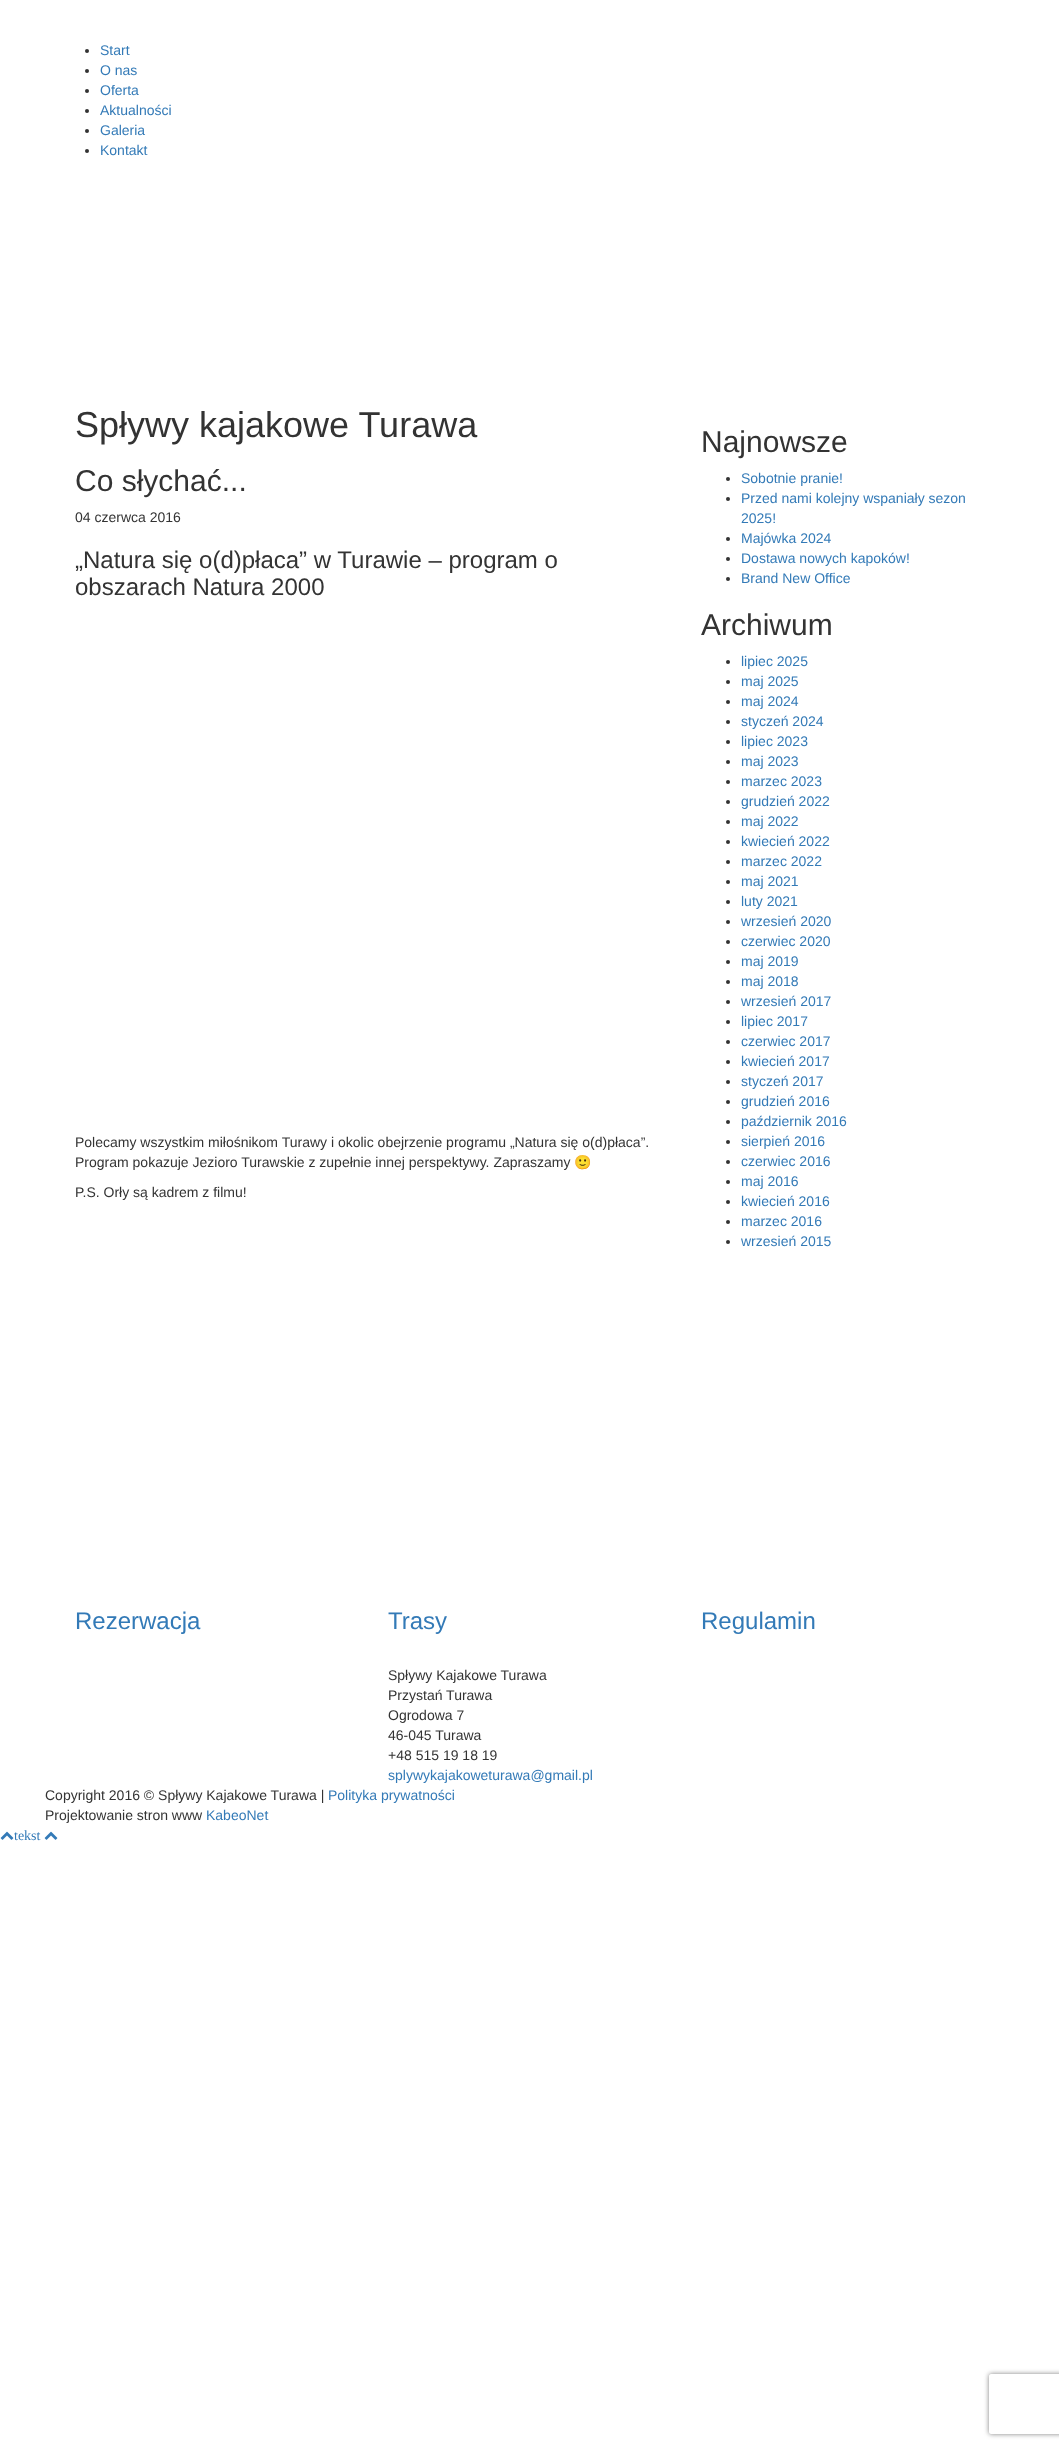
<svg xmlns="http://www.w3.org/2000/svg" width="1059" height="2448">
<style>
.a{font:14px Liberation Sans;fill:#337ab7}
.b{font:36px Liberation Sans;fill:#333}
.c{font:30px Liberation Sans;fill:#333}
.d{font:14px Liberation Sans;fill:#333}
.e{font:24px Liberation Sans;fill:#333}
.f{font:14px Noto Color Emoji;fill:#333}
.g{font:24px Liberation Sans;fill:#337ab7}
.h{font:14px Liberation Serif;fill:#337ab7}
</style>
<defs>
<clipPath id="clip1"><path d="M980 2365h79v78h-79zm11 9h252c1 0 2 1 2 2v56c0 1-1 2-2 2h-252c-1 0-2-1-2-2v-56c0-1 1-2 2-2z" clip-rule="evenodd"/></clipPath>
</defs>
<rect width="100%" height="100%" fill="#fff"/>
<circle fill="#333" cx="87" cy="51" r="2"/>
<circle fill="#333" cx="87" cy="71" r="2"/>
<circle fill="#333" cx="87" cy="91" r="2"/>
<circle fill="#333" cx="87" cy="111" r="2"/>
<circle fill="#333" cx="87" cy="131" r="2"/>
<circle fill="#333" cx="87" cy="151" r="2"/>
<circle fill="#333" cx="728" cy="479" r="2"/>
<circle fill="#333" cx="728" cy="499" r="2"/>
<circle fill="#333" cx="728" cy="539" r="2"/>
<circle fill="#333" cx="728" cy="559" r="2"/>
<circle fill="#333" cx="728" cy="579" r="2"/>
<circle fill="#333" cx="728" cy="662" r="2"/>
<circle fill="#333" cx="728" cy="682" r="2"/>
<circle fill="#333" cx="728" cy="702" r="2"/>
<circle fill="#333" cx="728" cy="722" r="2"/>
<circle fill="#333" cx="728" cy="742" r="2"/>
<circle fill="#333" cx="728" cy="762" r="2"/>
<circle fill="#333" cx="728" cy="782" r="2"/>
<circle fill="#333" cx="728" cy="802" r="2"/>
<circle fill="#333" cx="728" cy="822" r="2"/>
<circle fill="#333" cx="728" cy="842" r="2"/>
<circle fill="#333" cx="728" cy="862" r="2"/>
<circle fill="#333" cx="728" cy="882" r="2"/>
<circle fill="#333" cx="728" cy="902" r="2"/>
<circle fill="#333" cx="728" cy="922" r="2"/>
<circle fill="#333" cx="728" cy="942" r="2"/>
<circle fill="#333" cx="728" cy="962" r="2"/>
<circle fill="#333" cx="728" cy="982" r="2"/>
<circle fill="#333" cx="728" cy="1002" r="2"/>
<circle fill="#333" cx="728" cy="1022" r="2"/>
<circle fill="#333" cx="728" cy="1042" r="2"/>
<circle fill="#333" cx="728" cy="1062" r="2"/>
<circle fill="#333" cx="728" cy="1082" r="2"/>
<circle fill="#333" cx="728" cy="1102" r="2"/>
<circle fill="#333" cx="728" cy="1122" r="2"/>
<circle fill="#333" cx="728" cy="1142" r="2"/>
<circle fill="#333" cx="728" cy="1162" r="2"/>
<circle fill="#333" cx="728" cy="1182" r="2"/>
<circle fill="#333" cx="728" cy="1202" r="2"/>
<circle fill="#333" cx="728" cy="1222" r="2"/>
<circle fill="#333" cx="728" cy="1242" r="2"/>
<image href="1.png" x="0" y="1831" width="14" height="9"/>
<image href="1.png" x="44" y="1831" width="14" height="9"/>
<g clip-path="url(#clip1)">
<rect fill="#808080" filter="blur(2.5px)" x="989" y="2374" width="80" height="60" rx="2"/>
</g>
<text class="a" x="100" y="55">Start</text>
<text class="a" x="100" y="75">O nas</text>
<text class="a" x="100" y="95">Oferta</text>
<text class="a" x="100" y="115">Aktualności</text>
<text class="a" x="100" y="135">Galeria</text>
<text class="a" x="100" y="155">Kontakt</text>
<text class="b" x="75" y="437">Spływy kajakowe Turawa</text>
<text class="c" x="75" y="491">Co słychać...</text>
<text class="d" x="75" y="522">04 czerwca 2016</text>
<text class="e" x="75" y="568">„Natura się o(d)płaca” w Turawie – program o</text>
<text class="e" x="75" y="595">obszarach Natura 2000</text>
<text class="d" x="75" y="1147">Polecamy wszystkim miłośnikom Turawy i okolic obejrzenie programu „Natura się o(d)płaca”.</text>
<text class="d" x="75" y="1167">Program pokazuje Jezioro Turawskie z zupełnie innej perspektywy. Zapraszamy</text>
<text class="f" x="574" y="1167">🙂</text>
<text class="d" x="75" y="1197">P.S. Orły są kadrem z filmu!</text>
<text class="c" x="701" y="452">Najnowsze</text>
<text class="a" x="741" y="483">Sobotnie pranie!</text>
<text class="a" x="741" y="503">Przed nami kolejny wspaniały sezon</text>
<text class="a" x="741" y="523">2025!</text>
<text class="a" x="741" y="543">Majówka 2024</text>
<text class="a" x="741" y="563">Dostawa nowych kapoków!</text>
<text class="a" x="741" y="583">Brand New Office</text>
<text class="c" x="701" y="635">Archiwum</text>
<text class="a" x="741" y="666">lipiec 2025</text>
<text class="a" x="741" y="686">maj 2025</text>
<text class="a" x="741" y="706">maj 2024</text>
<text class="a" x="741" y="726">styczeń 2024</text>
<text class="a" x="741" y="746">lipiec 2023</text>
<text class="a" x="741" y="766">maj 2023</text>
<text class="a" x="741" y="786">marzec 2023</text>
<text class="a" x="741" y="806">grudzień 2022</text>
<text class="a" x="741" y="826">maj 2022</text>
<text class="a" x="741" y="846">kwiecień 2022</text>
<text class="a" x="741" y="866">marzec 2022</text>
<text class="a" x="741" y="886">maj 2021</text>
<text class="a" x="741" y="906">luty 2021</text>
<text class="a" x="741" y="926">wrzesień 2020</text>
<text class="a" x="741" y="946">czerwiec 2020</text>
<text class="a" x="741" y="966">maj 2019</text>
<text class="a" x="741" y="986">maj 2018</text>
<text class="a" x="741" y="1006">wrzesień 2017</text>
<text class="a" x="741" y="1026">lipiec 2017</text>
<text class="a" x="741" y="1046">czerwiec 2017</text>
<text class="a" x="741" y="1066">kwiecień 2017</text>
<text class="a" x="741" y="1086">styczeń 2017</text>
<text class="a" x="741" y="1106">grudzień 2016</text>
<text class="a" x="741" y="1126">październik 2016</text>
<text class="a" x="741" y="1146">sierpień 2016</text>
<text class="a" x="741" y="1166">czerwiec 2016</text>
<text class="a" x="741" y="1186">maj 2016</text>
<text class="a" x="741" y="1206">kwiecień 2016</text>
<text class="a" x="741" y="1226">marzec 2016</text>
<text class="a" x="741" y="1246">wrzesień 2015</text>
<text class="g" x="75" y="1629">Rezerwacja</text>
<text class="g" x="388" y="1629">Trasy</text>
<text class="g" x="701" y="1629">Regulamin</text>
<text class="d" x="388" y="1680">Spływy Kajakowe Turawa</text>
<text class="d" x="388" y="1700">Przystań Turawa</text>
<text class="d" x="388" y="1720">Ogrodowa 7</text>
<text class="d" x="388" y="1740">46-045 Turawa</text>
<text class="d" x="388" y="1760">+48 515 19 18 19</text>
<text class="a" x="388" y="1780">splywykajakoweturawa@gmail.pl</text>
<text class="d" x="45" y="1800">Copyright 2016 © Spływy Kajakowe Turawa |</text>
<text class="a" x="328" y="1800">Polityka prywatności</text>
<text class="d" x="45" y="1820">Projektowanie stron www</text>
<text class="a" x="206" y="1820">KabeoNet</text>
<text class="h" x="14" y="1840">tekst</text>
</svg>
